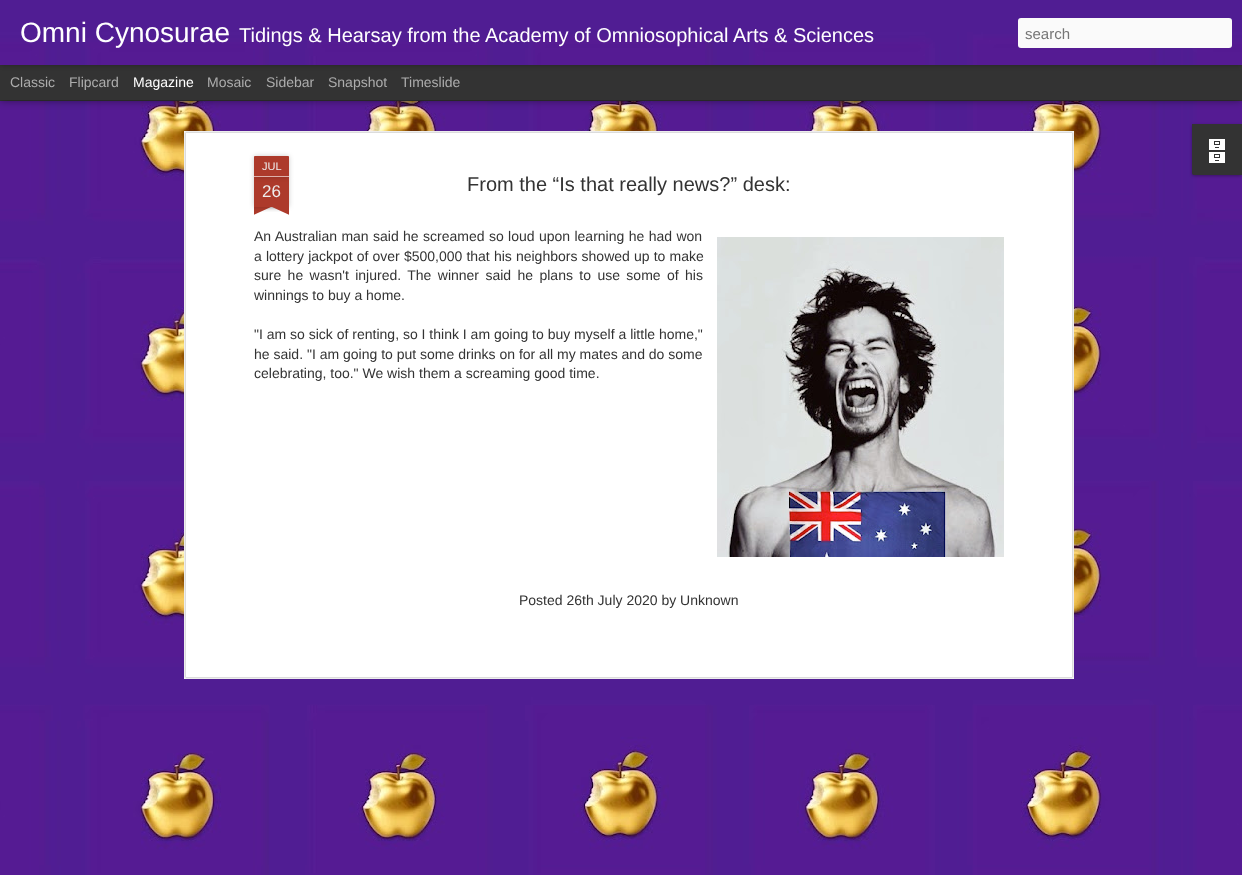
<svg xmlns="http://www.w3.org/2000/svg" width="1242" height="875">
<style>
.a{font:28px Liberation Sans;fill:#fff}
.b{font:20px Liberation Sans;fill:#fff}
.c{font:15px Liberation Sans;fill:#757575}
.d{font:14px Liberation Sans;fill:#adadad}
.e{font:14px Liberation Sans;fill:#fff}
.f{font:11px Liberation Sans;fill:#eee}
.g{font:17px Liberation Sans;fill:#eee}
.h{font:20px Liberation Sans;fill:#333}
.i{font:14px Liberation Sans;fill:#333}
</style>
<defs>
<clipPath id="clip1"><path d="M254 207h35v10H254z"/></clipPath>
<clipPath id="clip2"><path d="M254 207h35v10H254z"/></clipPath>
</defs>
<rect width="100%" height="100%" fill="#333"/>
<image href="3.png" x="0" y="101" width="1242" height="774"/>
<path fill="#00000080" filter="blur(4px)" d="M0 65h1242v35H0z"/>
<path fill="#333" d="M0 65h1242v35H0z"/>
<path fill="#0000004d" filter="blur(2.5px)" d="M0 0h1242v65H0z"/>
<image href="1.png" x="0" y="0" width="1242" height="65"/>
<rect fill="#fafafa" x="1018" y="18" width="214" height="30" rx="3"/>
<rect fill="#0000004d" filter="blur(1.5px)" x="1192" y="125" width="50" height="51" rx="2"/>
<path fill="#333" d="M1192 124h50v51h-48c-1 0-2-1-2-2z"/>
<image href="2.png" x="1209" y="139" width="16" height="24"/>
<path fill="#fff" d="M184 131h890v548H184z"/>
<image href="4.png" x="184" y="131" width="890" height="548"/>
<path fill="#00000033" filter="blur(2.5px)" d="M254 177h35v30H254z"/>
<path fill="#ad3a2b" d="M254 177h35v30H254z"/>
<rect fill="#00000033" filter="blur(2.5px)" x="254" y="156" width="35" height="21" rx="1"/>
<path fill="#ad3a2b" d="M255 156h33c.5 0 1 .5 1 1v20h-35v-20c0-.5 .5-1 1-1z"/>
<path fill="#deb0aa" d="M254 176h35v1H254z"/>
<g clip-path="url(#clip1)">
<path fill="#00000033" filter="blur(2.5px)" d="M245 197h50v10H245z"/>
</g>
<g clip-path="url(#clip2)">
<path fill="#ad3a2b" d="M245 208l46-21l4 9l-46 21z"/>
</g>
<g clip-path="url(#clip1)">
<path fill="#00000033" filter="blur(2.5px)" d="M248 197h50v10H248z"/>
</g>
<g clip-path="url(#clip2)">
<path fill="#ad3a2b" d="M252 187l46 21l-4 9l-46-21z"/>
</g>
<image href="5.png" x="717" y="237" width="287" height="320"/>
<text class="a" x="20" y="42">Omni Cynosurae</text>
<text class="b" x="239" y="42">Tidings &amp; Hearsay from the Academy of Omniosophical Arts &amp; Sciences</text>
<text class="c" x="1025" y="39">search</text>
<text class="d" x="10" y="87">Classic</text>
<text class="d" x="69" y="87">Flipcard</text>
<text class="e" x="133" y="87">Magazine</text>
<text class="d" x="207" y="87">Mosaic</text>
<text class="d" x="266" y="87">Sidebar</text>
<text class="d" x="328" y="87">Snapshot</text>
<text class="d" x="401" y="87">Timeslide</text>
<text class="f" x="262" y="170">JUL</text>
<text class="g" x="262" y="197">26</text>
<text class="h" x="467" y="191">From the “Is that really news?” desk:</text>
<text class="i" x="254" y="241" word-spacing="0.5">An Australian man said he screamed so loud upon learning he had won</text>
<text class="i" x="254" y="261" word-spacing="0.25">a lottery jackpot of over $500,000 that his neighbors showed up to make</text>
<text class="i" x="254" y="280" word-spacing="2.5">sure he wasn't injured. The winner said he plans to use some of his</text>
<text class="i" x="254" y="300">winnings to buy a home.</text>
<text class="i" x="254" y="339">"I am so sick of renting, so I think I am going to buy myself a little home,"</text>
<text class="i" x="254" y="359">he said. "I am going to put some drinks on for all my mates and do some</text>
<text class="i" x="254" y="378">celebrating, too." We wish them a screaming good time.</text>
<text class="i" x="519" y="605">Posted 26th July 2020 by Unknown</text>
</svg>
